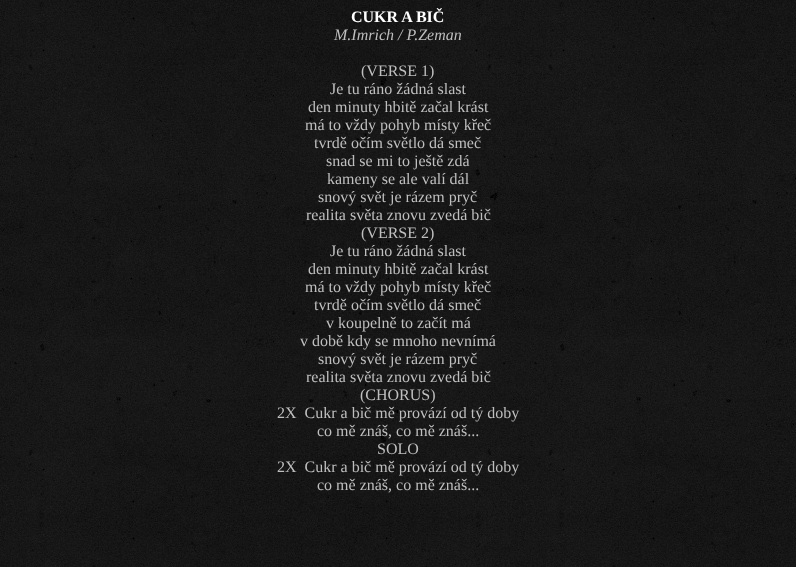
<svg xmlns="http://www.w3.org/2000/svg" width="796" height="567">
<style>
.a{font:bold 16px Liberation Serif;fill:#fff}
.b{font:italic 16px Liberation Serif;fill:#bfbfbf}
.c{font:16px Liberation Serif;fill:#bfbfbf}
</style>
<rect width="100%" height="100%" fill="#fff"/>
<image href="1.png" x="0" y="0" width="796" height="567"/>
<text class="a" x="351" y="22">CUKR A BIČ</text>
<text class="b" x="334" y="40">M.Imrich / P.Zeman</text>
<text class="c" x="361" y="76">(VERSE 1)</text>
<text class="c" x="330" y="94">Je tu ráno žádná slast</text>
<text class="c" x="308" y="112">den minuty hbitě začal krást</text>
<text class="c" x="305" y="130">má to vždy pohyb místy křeč</text>
<text class="c" x="314" y="148">tvrdě očím světlo dá smeč</text>
<text class="c" x="326" y="166">snad se mi to ještě zdá</text>
<text class="c" x="327" y="184">kameny se ale valí dál</text>
<text class="c" x="318" y="202">snový svět je rázem pryč</text>
<text class="c" x="306" y="220">realita světa znovu zvedá bič</text>
<text class="c" x="361" y="238">(VERSE 2)</text>
<text class="c" x="330" y="256">Je tu ráno žádná slast</text>
<text class="c" x="308" y="274">den minuty hbitě začal krást</text>
<text class="c" x="305" y="292">má to vždy pohyb místy křeč</text>
<text class="c" x="314" y="310">tvrdě očím světlo dá smeč</text>
<text class="c" x="326" y="328">v koupelně to začít má</text>
<text class="c" x="300" y="346">v době kdy se mnoho nevnímá</text>
<text class="c" x="318" y="364">snový svět je rázem pryč</text>
<text class="c" x="306" y="382">realita světa znovu zvedá bič</text>
<text class="c" x="360" y="400">(CHORUS)</text>
<text class="c" xml:space="preserve" x="277" y="418">2X  Cukr a bič mě provází od tý doby</text>
<text class="c" x="317" y="436">co mě znáš, co mě znáš...</text>
<text class="c" x="377" y="454">SOLO</text>
<text class="c" xml:space="preserve" x="277" y="472">2X  Cukr a bič mě provází od tý doby</text>
<text class="c" x="317" y="490">co mě znáš, co mě znáš...</text>
</svg>
